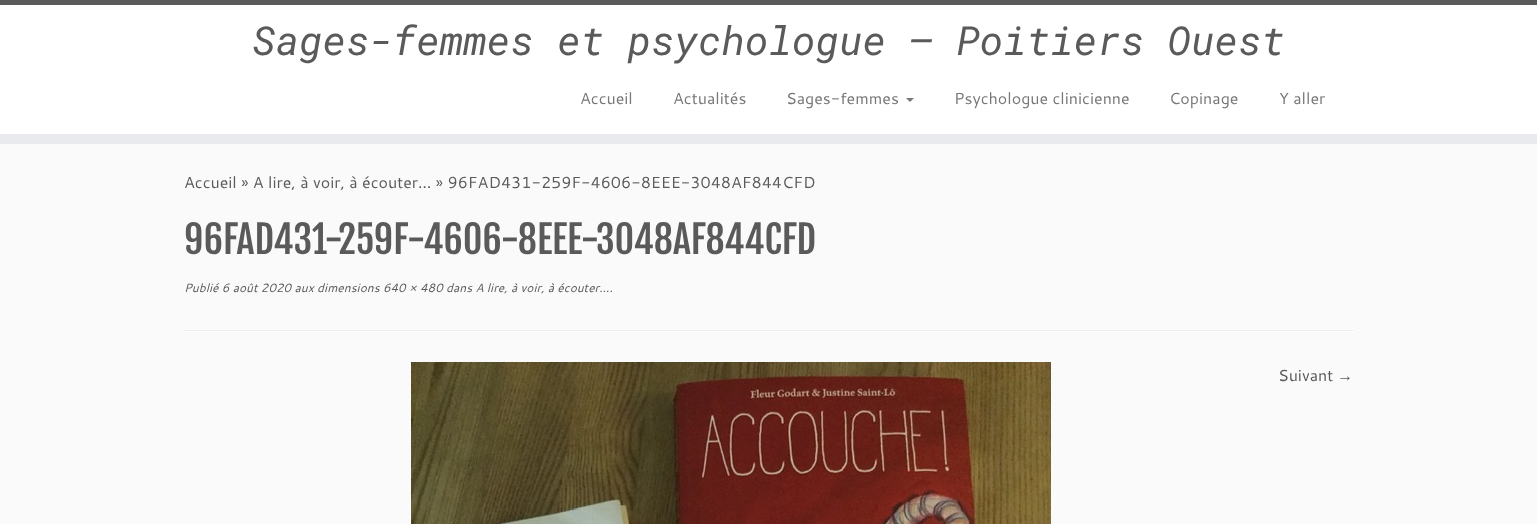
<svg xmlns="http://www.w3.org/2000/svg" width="1537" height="524">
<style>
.a{font:italic 40px Roboto Mono;fill:#5a5a5a}
.b{font:16px Cantarell;fill:#777}
.c{font:16px Cantarell;fill:#5a5a5a}
.d{font:38px Fjalla One;fill:#5a5a5a}
.e{font:italic 12px Cantarell;fill:#5a5a5a}
.f{font:16px Liberation Serif;fill:#5a5a5a}
</style>
<rect width="100%" height="100%" fill="#fafafa"/>
<path fill="#fff" d="M0 5h1537v129H0z"/>
<path fill="#5a5a5a" d="M0 0h1537v5H0z"/>
<path fill="#e9eaee" d="M0 134h1537v10H0z"/>
<path fill="#777" d="M906 98h8l-4 4z"/>
<path fill="#eee" d="M184 330h1170v1H184z"/>
<path fill="#fff" d="M184 331h1170v1H184z"/>
<image href="1.png" x="411" y="362" width="640" height="162"/>
<text class="a" x="252" y="55">Sages-femmes et psychologue – Poitiers Ouest</text>
<text class="b" x="580" y="104">Accueil</text>
<text class="b" x="673" y="104">Actualités</text>
<text class="b" x="786" y="104">Sages-femmes</text>
<text class="b" x="954" y="104">Psychologue clinicienne</text>
<text class="b" x="1169" y="104">Copinage</text>
<text class="b" x="1279" y="104">Y aller</text>
<text class="c" x="184" y="188">Accueil » A lire, à voir, à écouter… » 96FAD431-259F-4606-8EEE-3048AF844CFD</text>
<text class="d" x="184" y="254">96FAD431-259F-4606-8EEE-3048AF844CFD</text>
<text class="e" x="184" y="292">Publié 6 août 2020 aux dimensions 640 × 480 dans A lire, à voir, à écouter….</text>
<text class="c" x="1278" y="381">Suivant</text>
<text class="f" x="1337" y="381">→</text>
</svg>
